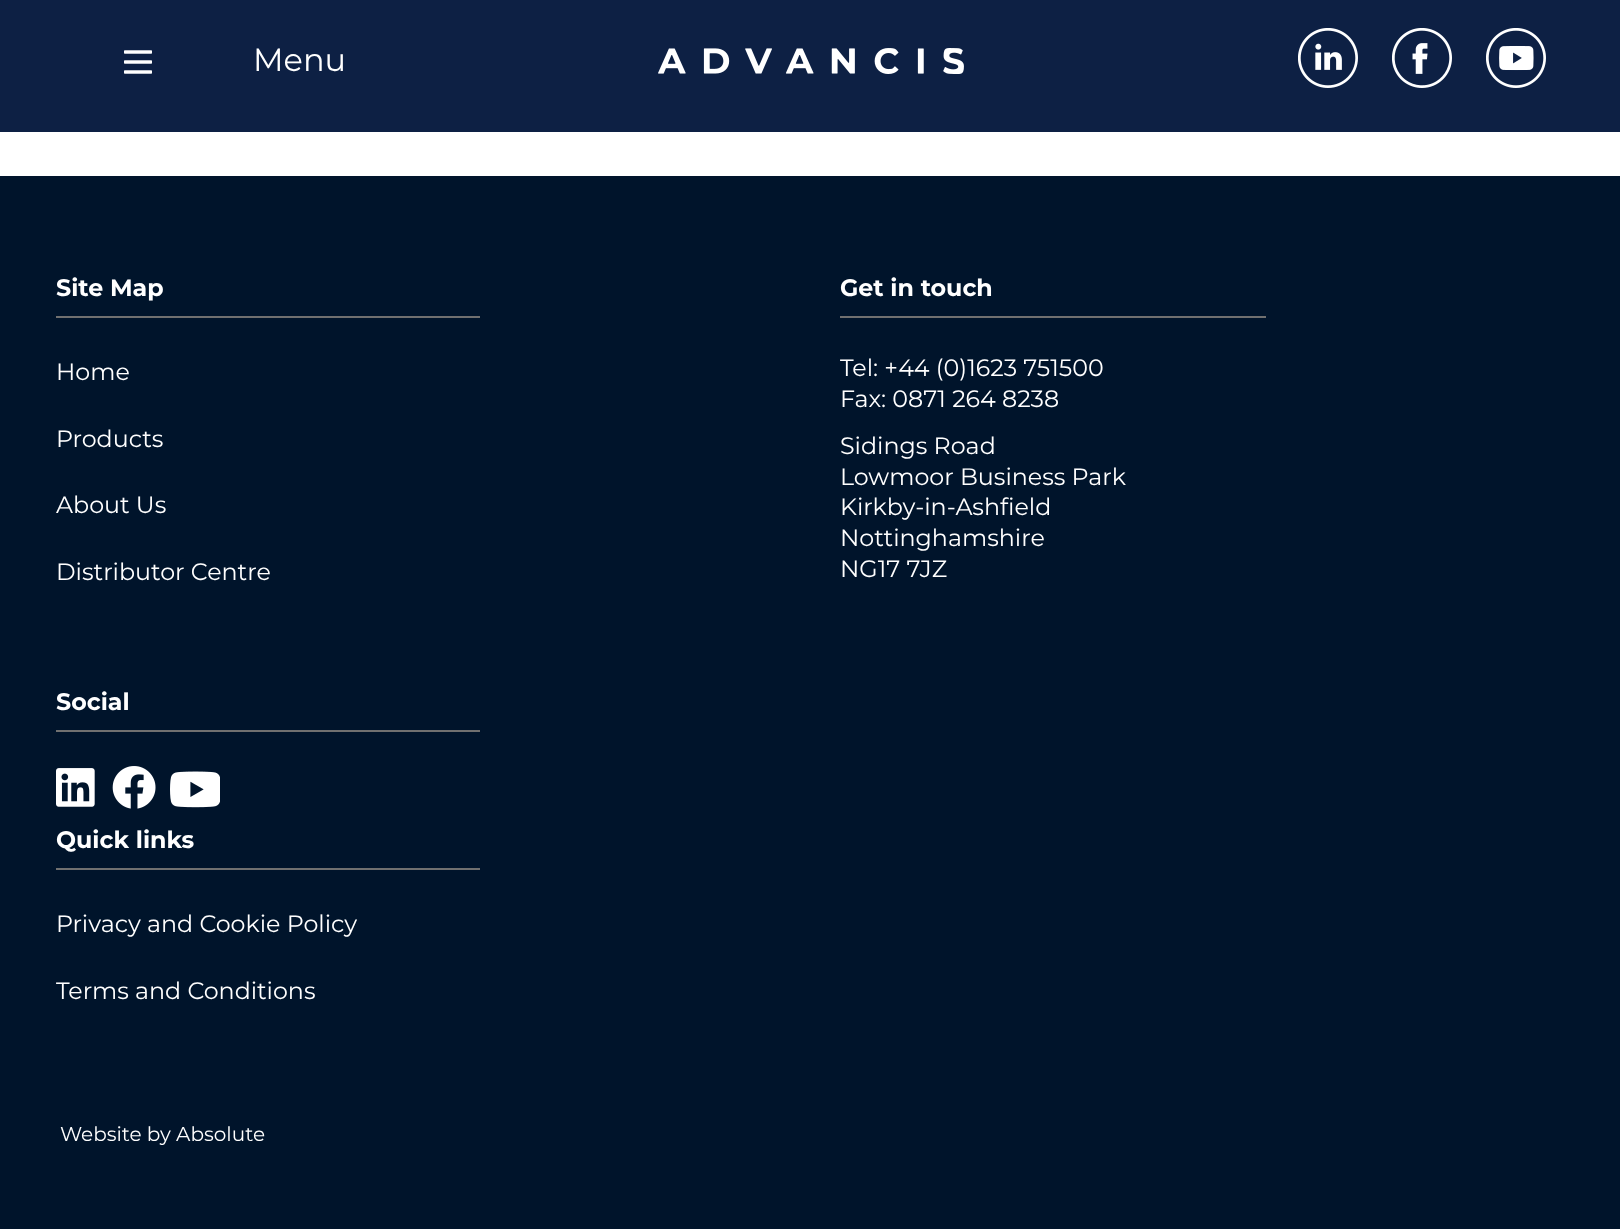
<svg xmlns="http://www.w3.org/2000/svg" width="1620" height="1229">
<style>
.a{font:32px Montserrat;fill:#fff}
.b{font:bold 23.75px Montserrat;fill:#fff}
.c{font:23.75px Montserrat;fill:#fff}
.d{font:20px Montserrat;fill:#fff}
</style>
<rect width="100%" height="100%" fill="#fff"/>
<path fill="#0d2044" d="M0 0h1620v132H0z"/>
<image href="1.png" x="124" y="50" width="28" height="24"/>
<image href="2.png" x="658" y="48" width="306" height="26"/>
<image href="3.png" x="1298" y="28" width="60" height="60"/>
<image href="4.png" x="1392" y="28" width="60" height="60"/>
<image href="5.png" x="1486" y="28" width="60" height="60"/>
<path fill="#00142b" d="M0 176h1620v1053H0z"/>
<path fill="#707070" d="M56 316h424v2H56z"/>
<path fill="#707070" d="M840 316h426v2H840z"/>
<path fill="#707070" d="M56 730h424v2H56z"/>
<image href="6.png" x="56" y="768" width="39" height="39"/>
<image href="7.png" x="112" y="766" width="44" height="43"/>
<image href="8.png" x="170" y="771" width="50" height="37"/>
<path fill="#707070" d="M56 868h424v2H56z"/>
<text class="a" x="253" y="71">Menu</text>
<text class="b" x="56" y="296">Site Map</text>
<text class="c" x="56" y="380">Home</text>
<text class="c" x="56" y="447">Products</text>
<text class="c" x="56" y="513">About Us</text>
<text class="c" x="56" y="580">Distributor Centre</text>
<text class="b" x="840" y="296">Get in touch</text>
<text class="c" x="840" y="376">Tel: +44 (0)1623 751500</text>
<text class="c" x="840" y="407">Fax: 0871 264 8238</text>
<text class="c" x="840" y="454">Sidings Road</text>
<text class="c" x="840" y="485">Lowmoor Business Park</text>
<text class="c" x="840" y="515">Kirkby-in-Ashfield</text>
<text class="c" x="840" y="546">Nottinghamshire</text>
<text class="c" x="840" y="577">NG17 7JZ</text>
<text class="b" x="56" y="710">Social</text>
<text class="b" x="56" y="848">Quick links</text>
<text class="c" x="56" y="932">Privacy and Cookie Policy</text>
<text class="c" x="56" y="999">Terms and Conditions</text>
<text class="d" x="60" y="1141">Website by Absolute</text>
</svg>
